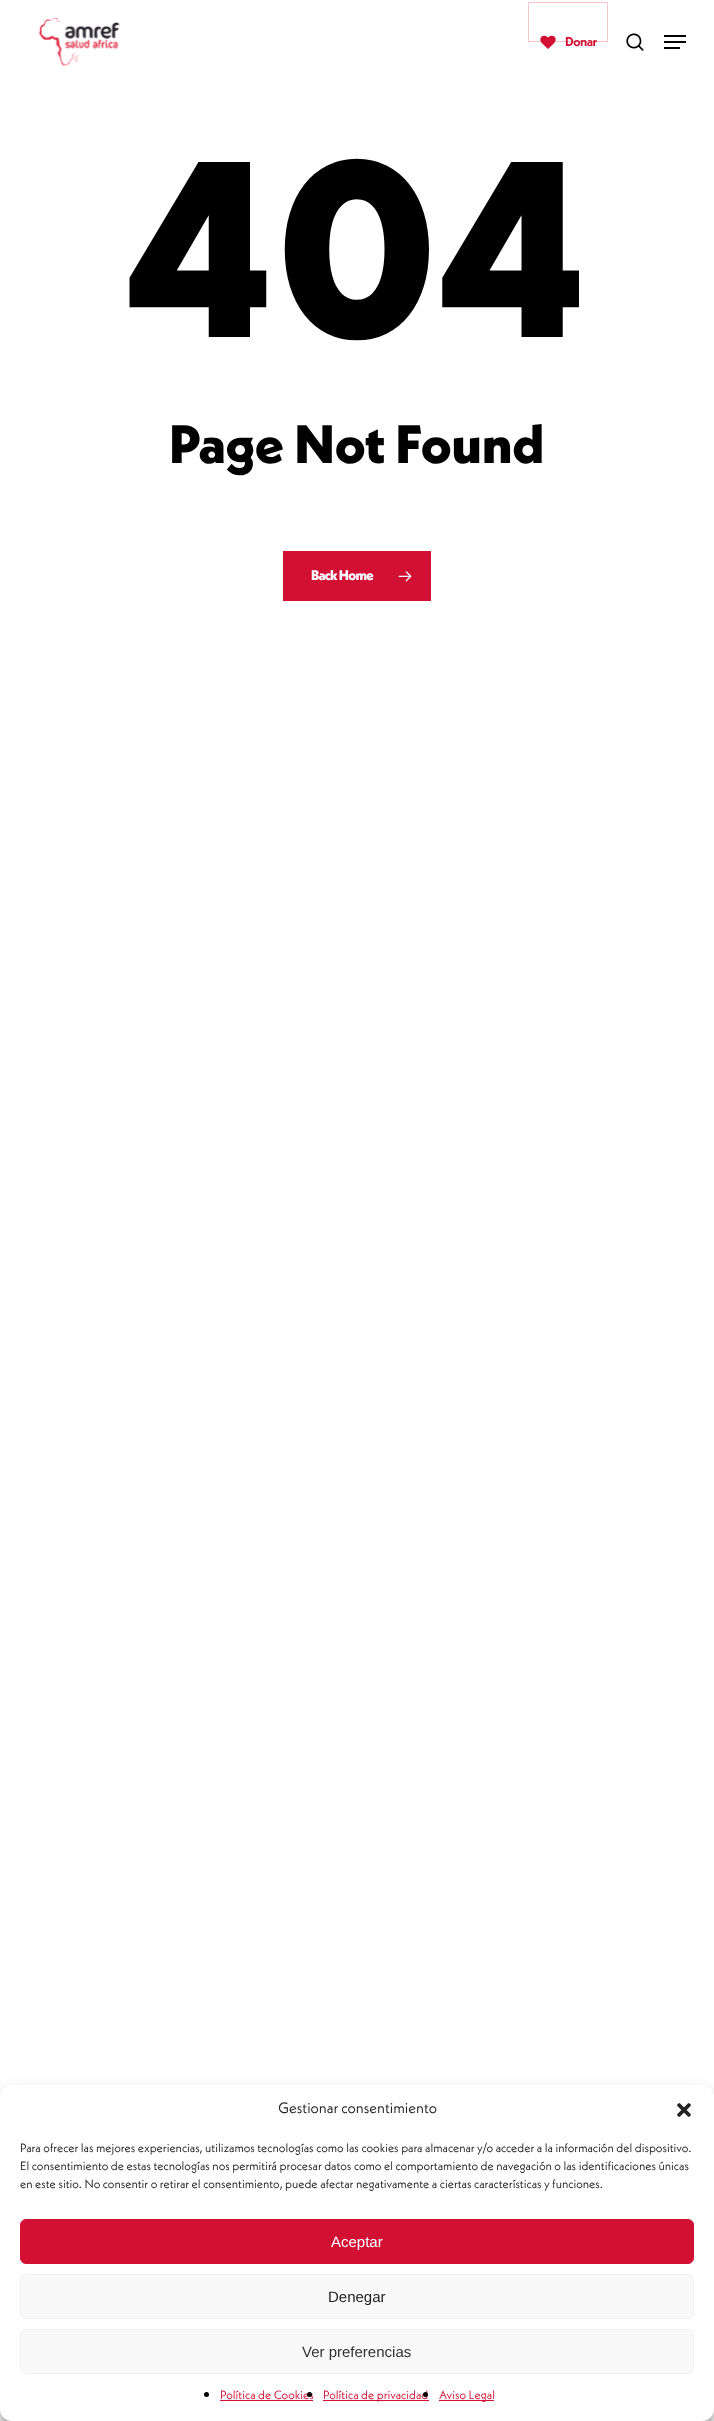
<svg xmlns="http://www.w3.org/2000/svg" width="714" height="2421">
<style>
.a{font:bold 13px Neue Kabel;letter-spacing:-0.5px;fill:#d21034}
.b{font:800 250px Neue Kabel;fill:#000}
.c{font:800 54px Neue Kabel;fill:#000}
.d{font:800 14px Neue Kabel;letter-spacing:-0.75px;fill:#fff}
.e{font:15px Neue Kabel;fill:#222}
.f{font:12px Neue Kabel;fill:#222}
.g{font:15px Liberation Sans;fill:#fff}
.h{font:15px Liberation Sans;fill:#222}
.i{font:15px Liberation Sans;fill:#333}
.j{font:12px Neue Kabel;fill:#d21034}
</style>
<rect width="100%" height="100%" fill="#fff"/>
<image href="1.png" x="38" y="17" width="82" height="49"/>
<path fill="none" stroke="#f4c3cc" d="M528.5 2.5h79v39H528.5z"/>
<image href="2.png" x="540" y="35" width="16" height="14"/>
<image href="3.png" x="626" y="33" width="18" height="18"/>
<path fill="#000" d="M664 35h22v2H664z"/>
<path fill="#000" d="M664 47h16v2H664z"/>
<path fill="#000" d="M664 41h22v2H664z"/>
<path fill="#d21034" d="M283 551h148v50H283z"/>
<image href="4.png" x="398" y="571" width="14" height="11"/>
<rect fill="#0000003b" filter="blur(3px)" y="2091" width="714" height="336" rx="12"/>
<rect fill="#00000030" filter="blur(10px)" y="2095" width="714" height="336" rx="12"/>
<rect fill="#fff" y="2085" width="714" height="336" rx="12"/>
<image href="5.png" x="677" y="2103" width="14" height="14"/>
<rect fill="#d21034" stroke="#d21034" x="20.5" y="2219.5" width="673" height="44" rx="5.5"/>
<rect fill="#f9f9f9" stroke="#f2f2f2" x="20.5" y="2274.5" width="673" height="44" rx="5.5"/>
<rect fill="#f9f9f9" stroke="#f2f2f2" x="20.5" y="2329.5" width="673" height="44" rx="5.5"/>
<circle fill="#000" cx="206.5" cy="2394.5" r="2.5"/>
<path fill="#d21034" d="M220 2400h93v1H220z"/>
<path fill="#d21034" d="M323 2400h106v1H323z"/>
<path fill="#d21034" d="M439 2400h55v1H439z"/>
<text class="a" x="565" y="46">Donar</text>
<text class="b" x="125" y="337">404</text>
<text class="c" x="169" y="463">Page Not Found</text>
<text class="d" x="311" y="580">Back Home</text>
<text class="e" x="278" y="2113">Gestionar consentimiento</text>
<text class="f" x="20" y="2152">Para ofrecer las mejores experiencias, utilizamos tecnologías como las cookies para almacenar y/o acceder a la información del dispositivo.</text>
<text class="f" x="20" y="2170">El consentimiento de estas tecnologías nos permitirá procesar datos como el comportamiento de navegación o las identificaciones únicas</text>
<text class="f" x="20" y="2188">en este sitio. No consentir o retirar el consentimiento, puede afectar negativamente a ciertas características y funciones.</text>
<text class="g" x="331" y="2247">Aceptar</text>
<text class="h" x="328" y="2302">Denegar</text>
<text class="i" x="302" y="2357">Ver preferencias</text>
<text class="j" x="220" y="2399">Política de Cookies</text>
<circle fill="#000" cx="309.5" cy="2394.5" r="2.5"/>
<text class="j" x="323" y="2399">Política de privacidad</text>
<circle fill="#000" cx="425.5" cy="2394.5" r="2.5"/>
<text class="j" x="439" y="2399">Aviso Legal</text>
</svg>
